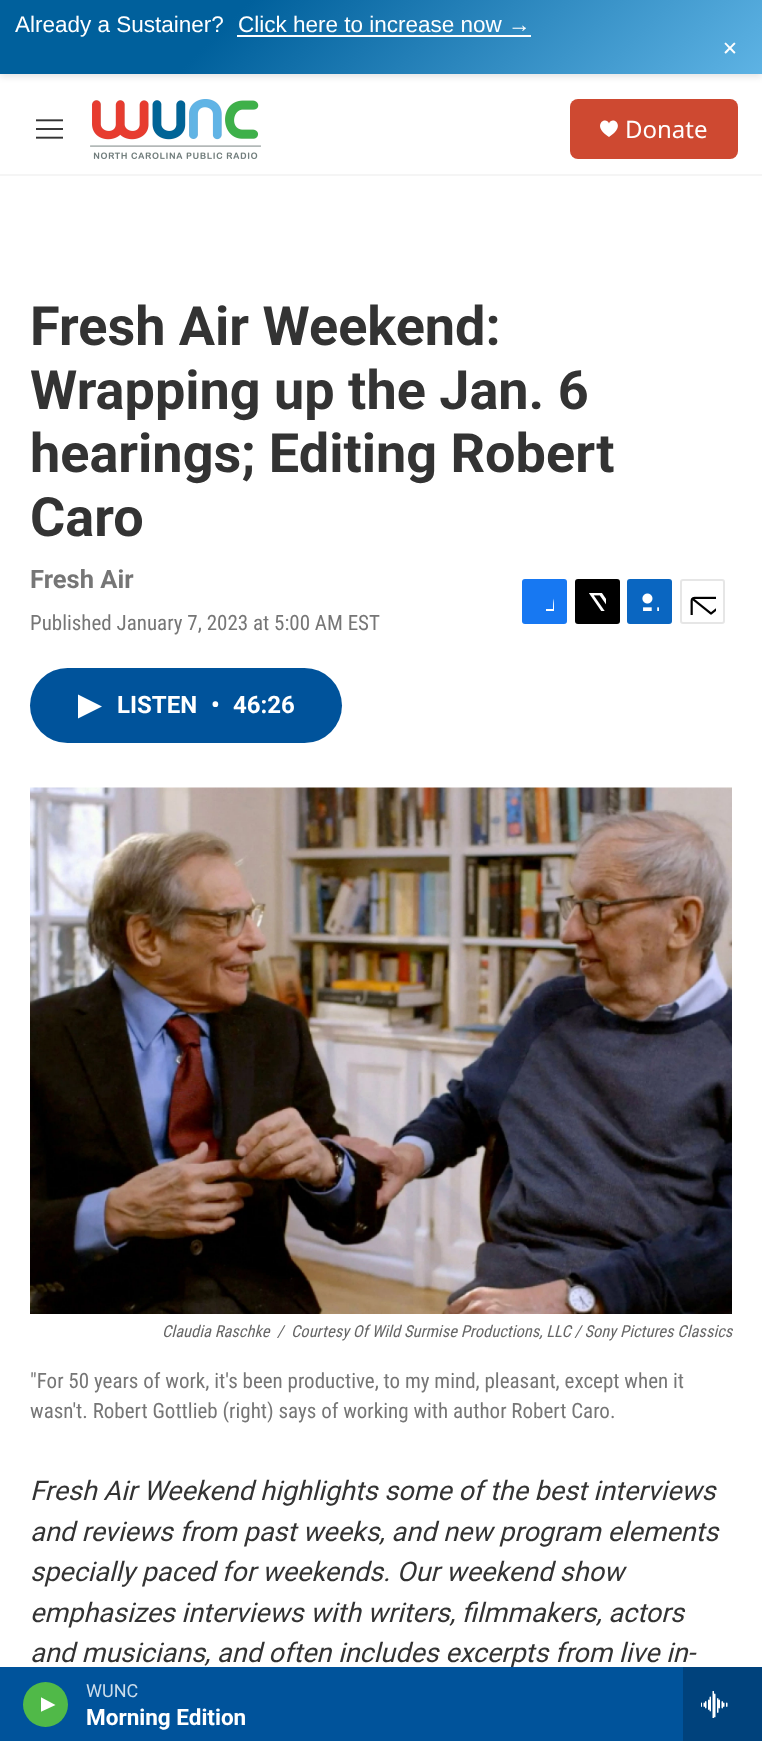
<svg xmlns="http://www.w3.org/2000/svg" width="762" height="1741">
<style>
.a{font:22.5px Liberation Sans;fill:#fff}
.b{font:19px DejaVu Sans;fill:#fff}
.c{font:24px Noto Sans;fill:#fff}
.d{font:bold 54px Roboto;fill:#333}
.e{font:bold 25.5px Roboto;fill:#767676}
.f{font:21px Roboto Condensed;fill:#767676}
.g{font:bold 24px 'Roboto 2';fill:#fff}
.h{font:italic 16.5px Roboto Condensed;fill:#666}
.i{font:italic 27px Roboto;fill:#333}
.j{font:18px Roboto;fill:#ccddeb}
.k{font:bold 22.5px 'Roboto 2';fill:#fff}
</style>
<defs>
<linearGradient id="g1" gradientUnits="userSpaceOnUse" x1="172" y1="-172" x2="590" y2="246"><stop offset="0.3" stop-color="#00609c"/><stop offset="1" stop-color="#5eb3e4"/></linearGradient>
<clipPath id="clip1"><path d="M536 593h18v18H536z"/></clipPath>
<clipPath id="clip2"><path d="M41 1697h15v16H41z"/></clipPath>
</defs>
<rect width="100%" height="100%" fill="#fff"/>
<path fill="#0000001a" filter="blur(3px)" d="M0 3h762v74H0z"/>
<path fill="url(#g1)" d="M0 0h762v74H0z"/>
<path fill="#fff" d="M237 35h294v2H237z"/>
<path fill="#f5f5f5" d="M0 174h762v2H0z"/>
<image href="1.png" x="36" y="119" width="27" height="20"/>
<image href="2.png" x="90" y="99" width="171" height="60"/>
<rect fill="#ce4931" x="570" y="99" width="168" height="60" rx="8"/>
<path fill="#fff" d="M609 123.5c-3-8-18.5 2 0 13.5c18.5-11.5 3-21.5 0-13.5z"/>
<rect fill="#1778f2" x="522" y="579" width="45" height="45" rx="3"/>
<g clip-path="url(#clip1)">
<path fill="#fff" d="M560 624h-7v-7h-7v-8h7c0-11.5 1-17.5 14-16v7c-8 0-7 2.5-7 9h7l-1 8h-6z"/>
</g>
<rect fill="#000" x="575" y="579" width="45" height="45" rx="3"/>
<image href="4.png" x="589" y="593" width="17" height="18"/>
<rect fill="#0a66c1" x="627" y="579" width="45" height="45" rx="3"/>
<image href="5.png" x="642" y="593" width="17" height="18"/>
<rect fill="none" stroke="#e6e6e6" stroke-width="2" x="681" y="580" width="43" height="43" rx="2"/>
<image href="6.png" x="690" y="596" width="26" height="19"/>
<rect fill="#00539b" x="30" y="668" width="312" height="75" rx="37.5"/>
<path fill="#fff" d="M78 694.5l24 12l-24 12z"/>
<image href="7.png" x="30" y="787" width="702" height="527"/>
<text class="a" x="15" y="32">Already a Sustainer?</text>
<text class="a" x="238" y="32">Click here to increase now →</text>
<text class="b" x="722" y="55">✕</text>
<text class="c" x="625" y="138">Donate</text>
<text class="d" x="30" y="345">Fresh Air Weekend:</text>
<text class="d" x="30" y="409">Wrapping up the Jan. 6</text>
<text class="d" x="30" y="472">hearings; Editing Robert</text>
<text class="d" x="30" y="536">Caro</text>
<text class="e" x="30" y="588">Fresh Air</text>
<text class="f" x="30" y="630">Published January 7, 2023 at 5:00 AM EST</text>
<text class="g" x="117" y="713">LISTEN</text>
<text class="g" x="211" y="713">•</text>
<text class="g" x="233" y="713">46:26</text>
<text class="h" x="162" y="1337">Claudia Raschke</text>
<text class="h" x="277" y="1337">/</text>
<text class="h" x="291" y="1337">Courtesy Of Wild Surmise Productions, LLC / Sony Pictures Classics</text>
<text class="f" x="30" y="1388">"For 50 years of work, it's been productive, to my mind, pleasant, except when it</text>
<text class="f" x="30" y="1418">wasn't. Robert Gottlieb (right) says of working with author Robert Caro.</text>
<text class="i" x="30" y="1500">Fresh Air Weekend highlights some of the best interviews</text>
<text class="i" x="30" y="1541">and reviews from past weeks, and new program elements</text>
<text class="i" x="30" y="1581">specially paced for weekends. Our weekend show</text>
<text class="i" x="30" y="1622">emphasizes interviews with writers, filmmakers, actors</text>
<text class="i" x="30" y="1662">and musicians, and often includes excerpts from live in-</text>
<path fill="#00539b" d="M0 1667h683v74H0z"/>
<text class="j" x="86" y="1697">WUNC</text>
<path fill="#00427c" d="M683 1667h79v74H683z"/>
<image href="3.png" x="701" y="1691" width="27" height="27"/>
<text class="k" x="86" y="1725">Morning Edition</text>
<circle fill="#50b948" cx="45.5" cy="1704.5" r="22.5"/>
<g clip-path="url(#clip2)">
<path fill="#fff" d="M40.5 1697l15 8l-15 7z"/>
</g>
</svg>
